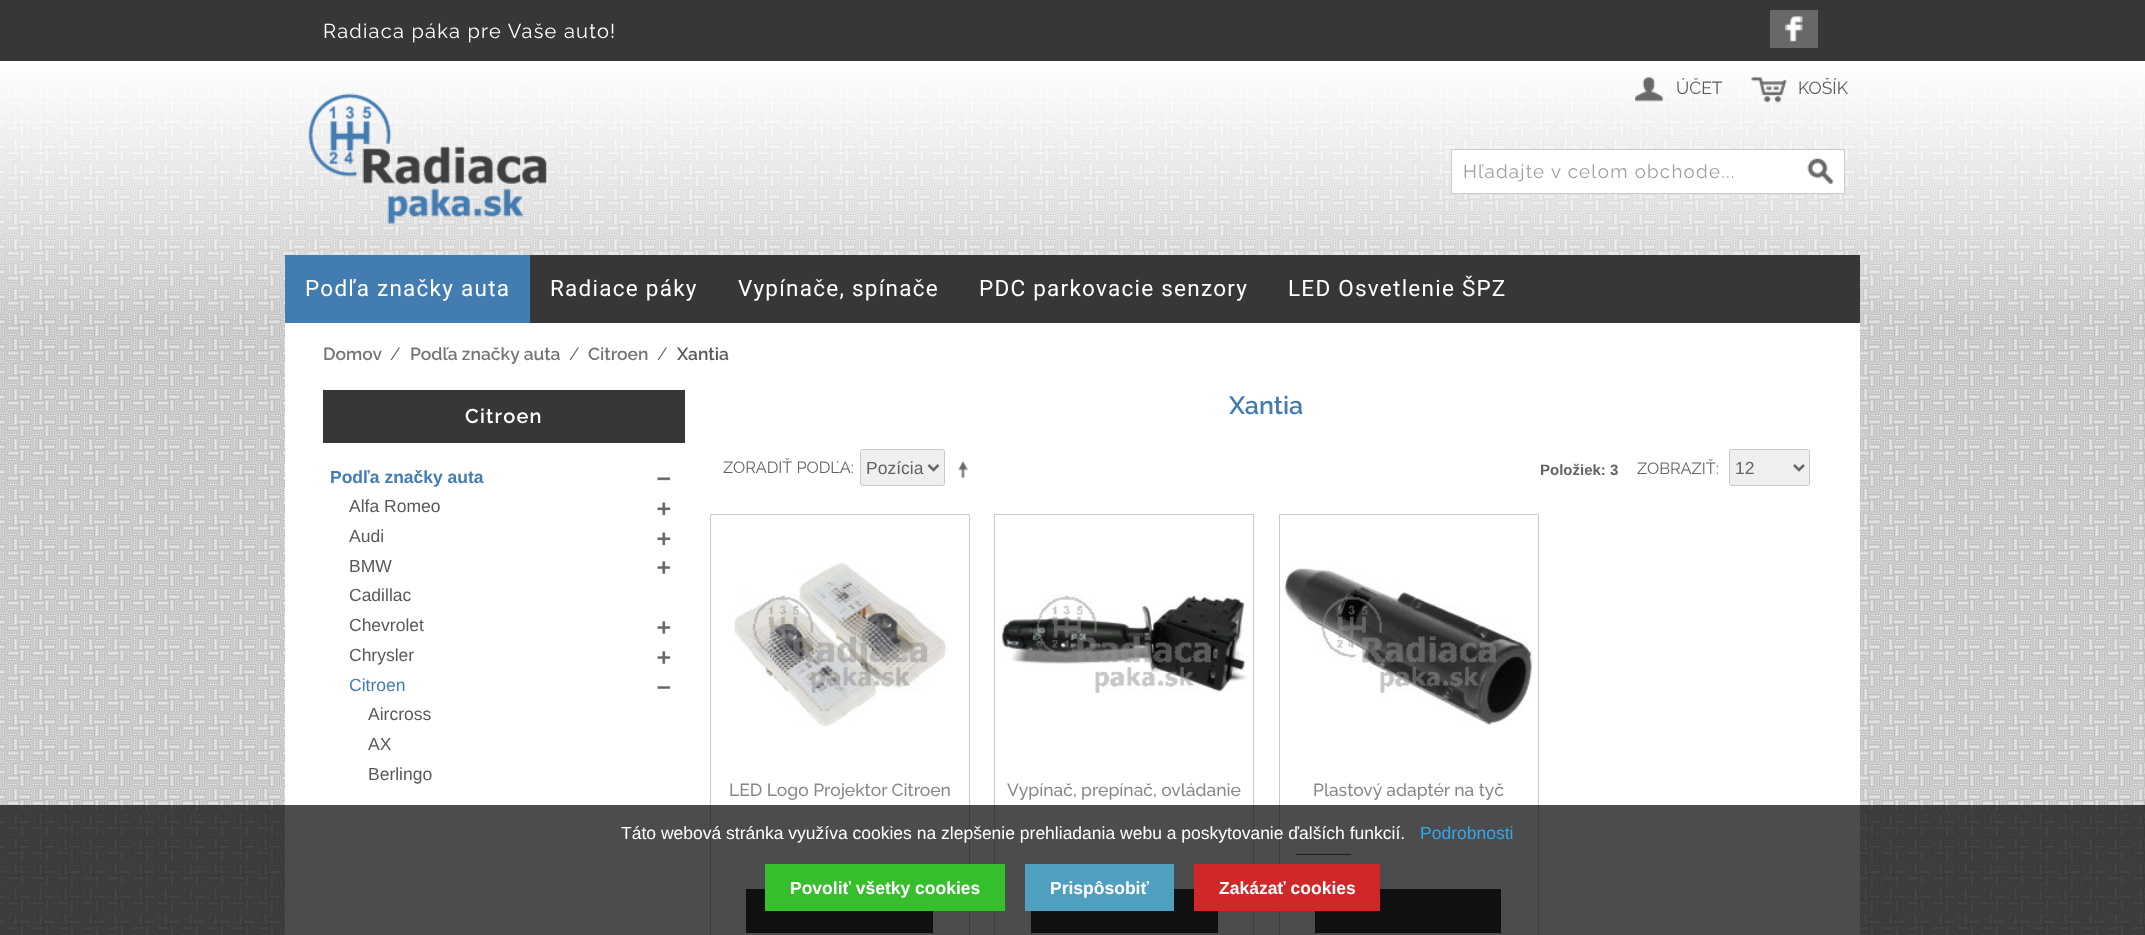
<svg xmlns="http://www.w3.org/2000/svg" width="2145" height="935">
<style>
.a{font:20px Raleway;letter-spacing:1.25px;fill:#fff}
.b{font:17.5px Raleway;fill:#595959}
.c{font:18.75px Raleway;letter-spacing:1.25px;fill:#a0a0a0}
.d{font:22.5px Roboto;letter-spacing:1.25px;fill:#fff}
.e{font:600 17.5px Raleway;fill:#757575}
.f{font:17.5px Raleway;fill:#636363}
.g{font:600 17.5px Raleway;fill:#595959}
.h{font:600 20px Raleway;letter-spacing:1.25px;fill:#fff}
.i{font:bold 17.5px Liberation Sans;fill:#437cb1}
.j{font:17.5px Liberation Sans;fill:#595959}
.k{font:17.5px Liberation Sans;fill:#437cb1}
.l{font:600 25px Raleway;fill:#437cb1}
.m{font:16.25px Raleway;fill:#636363}
.n{font:17.5px Liberation Sans;fill:#636363}
.o{font:bold 15px Liberation Sans;fill:#636363}
.p{font:500 17.5px Raleway;fill:#888}
.q{font:17.5px Liberation Sans;fill:#fff}
.r{font:17.5px Liberation Sans;fill:#31a8f0}
.s{font:bold 17.5px Liberation Sans;fill:#fff}
</style>
<rect width="100%" height="100%" fill="#fff"/>
<image href="1.png" x="0" y="61" width="2145" height="874"/>
<path fill="#373737" d="M0 0h2145v61H0z"/>
<path fill="#686868" d="M1770 10h48v38H1770z"/>
<image href="2.png" x="1784" y="16" width="19" height="26"/>
<image href="3.png" x="1635" y="76" width="29" height="26"/>
<image href="4.png" x="1751" y="76" width="36" height="27"/>
<image href="5.png" x="308" y="93" width="239" height="131"/>
<path fill="#fff" stroke="#cacaca" d="M1451.5 149.5h393v44H1451.5z"/>
<image href="6.png" x="1807" y="158" width="27" height="27"/>
<path fill="#373737" d="M530 255h1330v68H530z"/>
<path fill="#437cb1" d="M285 255h245v68H285z"/>
<path fill="#fff" d="M285 323h1575v612H285z"/>
<path fill="#373737" d="M323 390h362v53H323z"/>
<image href="7.png" x="657" y="477" width="14" height="4"/>
<image href="8.png" x="657" y="502" width="14" height="14"/>
<image href="8.png" x="657" y="532" width="14" height="14"/>
<image href="9.png" x="657" y="561" width="14" height="13"/>
<image href="9.png" x="657" y="621" width="14" height="13"/>
<image href="9.png" x="657" y="651" width="14" height="13"/>
<image href="10.png" x="657" y="686" width="14" height="3"/>
<rect fill="#efefef" stroke="#cacaca" x="860.5" y="449.5" width="84" height="36" rx="2"/>
<path fill="none" stroke="#686868" stroke-width="2.5" d="M928.5 465l5 5l5-5"/>
<image href="11.png" x="958" y="461" width="10" height="18"/>
<rect fill="#efefef" stroke="#cacaca" x="1729.5" y="449.5" width="80" height="36" rx="2"/>
<path fill="none" stroke="#686868" stroke-width="2.5" d="M1794 465l5 5l5-5"/>
<path fill="none" stroke="#cacaca" d="M710.5 514.5h259v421H710.5z"/>
<image href="12.png" x="734" y="562" width="212" height="165"/>
<path fill="#373737" d="M746 889h187v44H746z"/>
<path fill="none" stroke="#cacaca" d="M994.5 514.5h259v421H994.5z"/>
<image href="13.png" x="995" y="594" width="255" height="99"/>
<path fill="#373737" d="M1031 889h187v44H1031z"/>
<path fill="none" stroke="#cacaca" d="M1279.5 514.5h259v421H1279.5z"/>
<image href="14.png" x="1284" y="567" width="250" height="161"/>
<path fill="#686868" d="M1296 854h55v1H1296z"/>
<path fill="#373737" d="M1315 889h186v44H1315z"/>
<path fill="#000000b3" d="M0 805h2145v130H0z"/>
<path fill="#36bf2d" d="M765 864h240v47H765z"/>
<path fill="#4fa0bf" d="M1025 864h149v47H1025z"/>
<path fill="#d02828" d="M1194 864h186v47H1194z"/>
<text class="a" x="323" y="38">Radiaca páka pre Vaše auto!</text>
<text class="b" x="1676" y="94">ÚČET</text>
<text class="b" x="1798" y="94">KOŠÍK</text>
<text class="c" x="1463" y="178">Hľadajte v celom obchode...</text>
<text class="d" x="305" y="296">Podľa značky auta</text>
<text class="d" x="550" y="296">Radiace páky</text>
<text class="d" x="738" y="296">Vypínače, spínače</text>
<text class="d" x="979" y="296">PDC parkovacie senzory</text>
<text class="d" x="1288" y="296">LED Osvetlenie ŠPZ</text>
<text class="e" x="323" y="360">Domov</text>
<text class="f" x="390" y="360">/</text>
<text class="e" x="410" y="360">Podľa značky auta</text>
<text class="f" x="569" y="360">/</text>
<text class="e" x="588" y="360">Citroen</text>
<text class="f" x="657" y="360">/</text>
<text class="g" x="677" y="360">Xantia</text>
<text class="h" x="465" y="423">Citroen</text>
<text class="i" x="330" y="483">Podľa značky auta</text>
<text class="j" x="349" y="512">Alfa Romeo</text>
<text class="j" x="349" y="542">Audi</text>
<text class="j" x="349" y="572">BMW</text>
<text class="j" x="349" y="601">Cadillac</text>
<text class="j" x="349" y="631">Chevrolet</text>
<text class="j" x="349" y="661">Chrysler</text>
<text class="k" x="349" y="691">Citroen</text>
<text class="j" x="368" y="720">Aircross</text>
<text class="j" x="368" y="750">AX</text>
<text class="j" x="368" y="780">Berlingo</text>
<text class="l" x="1229" y="414">Xantia</text>
<text class="m" x="723" y="473">ZORADIŤ PODĽA:</text>
<text class="n" x="866" y="474">Pozícia</text>
<text class="o" x="1540" y="475">Položiek: 3</text>
<text class="m" x="1637" y="474">ZOBRAZIŤ:</text>
<text class="n" x="1735" y="474">12</text>
<text class="p" x="729" y="796">LED Logo Projektor Citroen</text>
<text class="p" x="1007" y="796">Vypínač, prepínač, ovládanie</text>
<text class="p" x="1313" y="796">Plastový adaptér na tyč</text>
<text class="q" x="621" y="839">Táto webová stránka využíva cookies na zlepšenie prehliadania webu a poskytovanie ďalších funkcií.</text>
<text class="r" x="1420" y="839">Podrobnosti</text>
<text class="s" x="790" y="894">Povoliť všetky cookies</text>
<text class="s" x="1050" y="894">Prispôsobiť</text>
<text class="s" x="1219" y="894">Zakázať cookies</text>
</svg>
